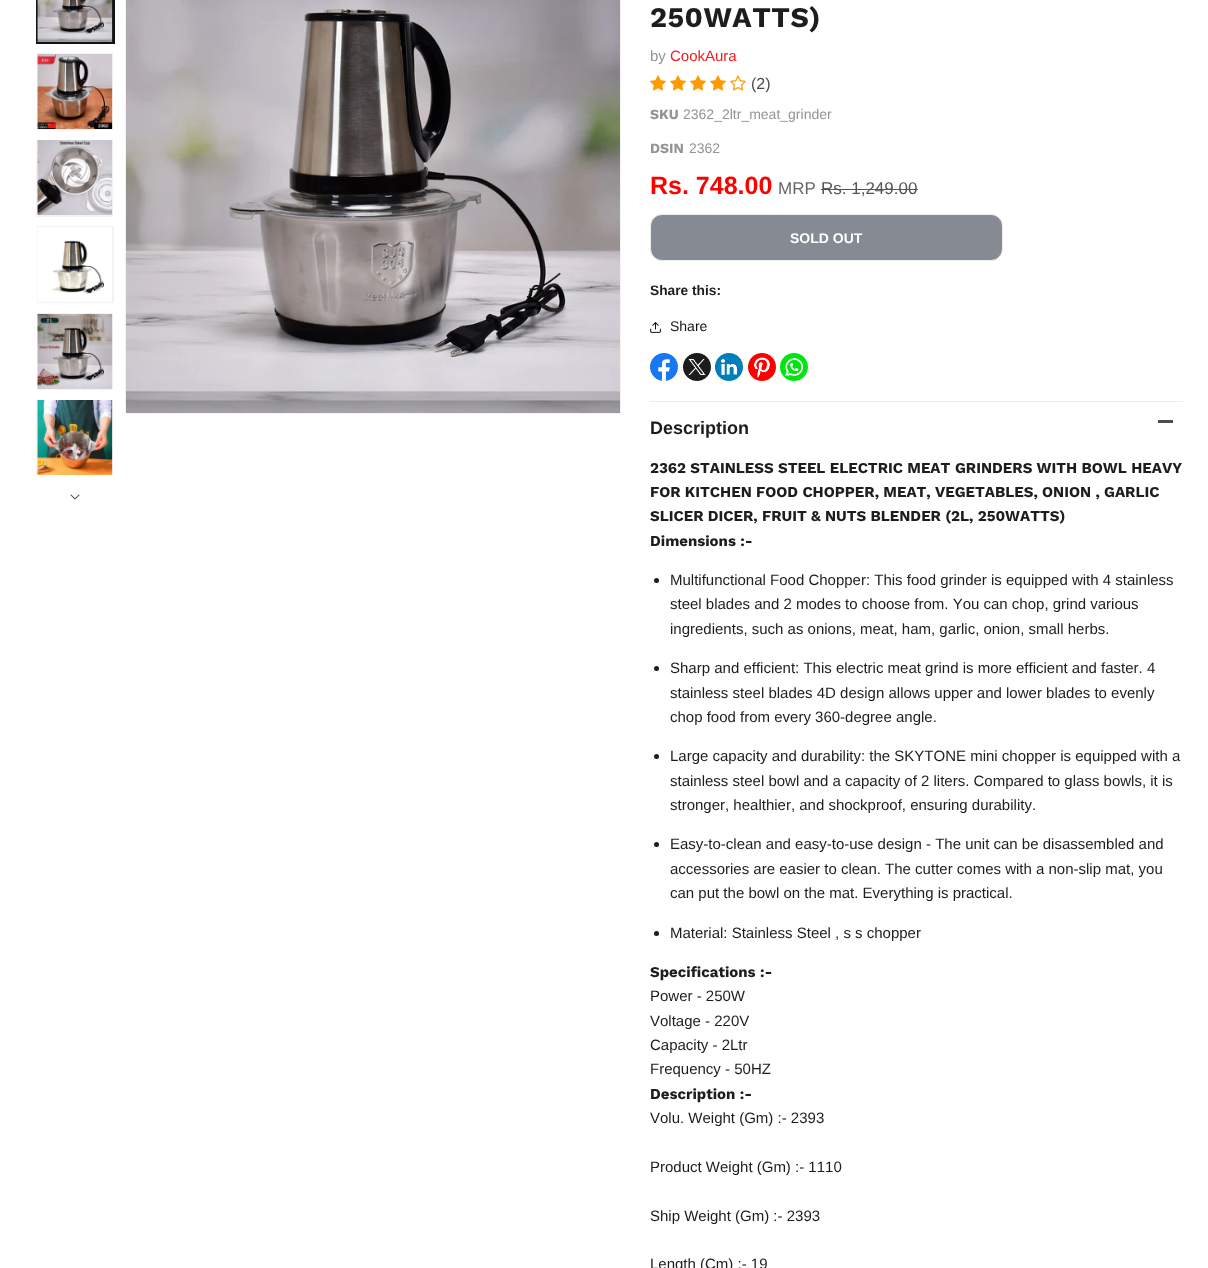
<svg xmlns="http://www.w3.org/2000/svg" width="1208" height="1268">
<style>*{font-kerning:none!important;font-variant-ligatures:none!important}</style>
<style>
.a{font:bold 28.5px Work Sans;letter-spacing:0.5px;fill:#1d1d1d}
.b{font:15px Liberation Sans;fill:#949494}
.c{font:15px Liberation Sans;fill:#ed2024}
.d{font:16px Liberation Sans;fill:#4d4d4d}
.e{font:bold 14px Work Sans;fill:#949494}
.f{font:14px Liberation Sans;fill:#949494}
.g{font:bold 25px Liberation Sans;fill:#f00}
.h{font:17px Liberation Sans;fill:#666}
.i{font:17px Liberation Sans;fill:#555}
.j{font:bold 14px Liberation Sans;fill:#fff}
.k{font:bold 13.75px Liberation Sans;fill:#1d1d1d}
.l{font:14px Liberation Sans;fill:#121212}
.m{font:bold 18px Liberation Sans;fill:#1d1d1d}
.n{font:bold 15px Work Sans;fill:#1d1d1d}
.o{font:15px Liberation Sans;fill:#1d1d1d}
</style>
<rect width="100%" height="100%" fill="#fff"/>
<path fill="#121212" d="M36 0h79v44H36z"/>
<image href="1.png" x="37" y="0" width="76" height="42"/>
<path fill="#f3f3f3" d="M37 53h76v77H37z"/>
<image href="2.png" x="37" y="54" width="76" height="75"/>
<path fill="#f3f3f3" d="M36 140h77v77H36z"/>
<image href="3.png" x="37" y="140" width="76" height="75"/>
<path fill="#f3f3f3" d="M37 226h77v77H37z"/>
<image href="4.png" x="37" y="227" width="75" height="75"/>
<path fill="#f3f3f3" d="M37 313h76v77H37z"/>
<image href="5.png" x="37" y="314" width="76" height="75"/>
<path fill="#f3f3f3" d="M36 400h77v75H36z"/>
<image href="6.png" x="37" y="400" width="76" height="75"/>
<image href="7.png" x="70" y="494" width="10" height="6"/>
<path fill="none" stroke="#f3f3f3" d="M125.5 -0.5h495v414H125.5z"/>
<image href="8.png" x="126" y="0" width="494" height="413"/>
<image href="9.png" x="650" y="75" width="16" height="16"/>
<image href="9.png" x="670" y="75" width="16" height="16"/>
<image href="9.png" x="690" y="75" width="16" height="16"/>
<image href="9.png" x="710" y="75" width="16" height="16"/>
<image href="10.png" x="730" y="75" width="16" height="16"/>
<path fill="#555" d="M821 189h97v1H821z"/>
<rect fill="#868b93" stroke="#eee" x="650.5" y="214.5" width="352" height="46" rx="11.5"/>
<image href="11.png" x="650" y="322" width="11" height="11"/>
<image href="12.png" x="650" y="353" width="28" height="28"/>
<image href="13.png" x="683" y="353" width="28" height="28"/>
<image href="14.png" x="715" y="353" width="28" height="28"/>
<image href="15.png" x="748" y="353" width="28" height="28"/>
<image href="16.png" x="780" y="353" width="28" height="28"/>
<path fill="#ececec" d="M650 401h533v1H650z"/>
<path fill="#4d4d4d" d="M1158 420h15v3H1158z"/>
<circle fill="#1d1d1d" cx="656.5" cy="580.5" r="2.5"/>
<circle fill="#1d1d1d" cx="656.5" cy="668.5" r="2.5"/>
<circle fill="#1d1d1d" cx="656.5" cy="756.5" r="2.5"/>
<circle fill="#1d1d1d" cx="656.5" cy="844.5" r="2.5"/>
<circle fill="#1d1d1d" cx="656.5" cy="933.5" r="2.5"/>
<text class="a" x="650" y="27">250WATTS)</text>
<text class="b" x="650" y="61">by</text>
<text class="c" x="670" y="61">CookAura</text>
<text class="d" x="751" y="89">(2)</text>
<text class="e" x="650" y="119">SKU</text>
<text class="f" x="683" y="119">2362_2ltr_meat_grinder</text>
<text class="e" x="650" y="153">DSIN</text>
<text class="f" x="689" y="153">2362</text>
<text class="g" x="650" y="194">Rs. 748.00</text>
<text class="h" x="778" y="194">MRP</text>
<text class="i" x="821" y="194">Rs. 1,249.00</text>
<text class="j" x="790" y="243">SOLD OUT</text>
<text class="k" x="650" y="295">Share this:</text>
<text class="l" x="670" y="331">Share</text>
<text class="m" x="650" y="434">Description</text>
<text class="n" x="650" y="473">2362 STAINLESS STEEL ELECTRIC MEAT</text>
<text class="n" x="955" y="473">GRINDERS WITH BOWL HEAVY</text>
<text class="n" x="650" y="497">FOR KITCHEN FOOD CHOPPER, MEAT,</text>
<text class="n" x="935" y="497">VEGETABLES, ONION , GARLIC</text>
<text class="n" x="650" y="521">SLICER DICER, FRUIT &amp; NUTS BLENDER (2L, 250WATTS)</text>
<text class="n" x="650" y="546">Dimensions :-</text>
<text class="o" x="670" y="585">Multifunctional Food Chopper: This food grinder is equipped with 4 stainless</text>
<text class="o" x="670" y="609">steel blades and 2 modes to choose from. You can chop, grind various</text>
<text class="o" x="670" y="634">ingredients, such as onions, meat, ham, garlic, onion, small herbs.</text>
<text class="o" x="670" y="673">Sharp and efficient: This electric meat grind is more efficient and faster. 4</text>
<text class="o" x="670" y="698">stainless steel blades 4D design allows upper and lower blades to evenly</text>
<text class="o" x="670" y="722">chop food from every 360-degree angle.</text>
<text class="o" x="670" y="761">Large capacity and durability: the SKYTONE mini chopper is equipped with a</text>
<text class="o" x="670" y="786">stainless steel bowl and a capacity of 2 liters. Compared to glass bowls, it is</text>
<text class="o" x="670" y="810">stronger, healthier, and shockproof, ensuring durability.</text>
<text class="o" x="670" y="849">Easy-to-clean and easy-to-use design - The unit can be disassembled and</text>
<text class="o" x="670" y="874">accessories are easier to clean. The cutter comes with a non-slip mat, you</text>
<text class="o" x="670" y="898">can put the bowl on the mat. Everything is practical.</text>
<text class="o" x="670" y="938">Material: Stainless Steel , s s chopper</text>
<text class="n" x="650" y="977">Specifications :-</text>
<text class="o" x="650" y="1001">Power - 250W</text>
<text class="o" x="650" y="1026">Voltage - 220V</text>
<text class="o" x="650" y="1050">Capacity - 2Ltr</text>
<text class="o" x="650" y="1074">Frequency - 50HZ</text>
<text class="n" x="650" y="1099">Description :-</text>
<text class="o" x="650" y="1123">Volu. Weight (Gm) :- 2393</text>
<text class="o" x="650" y="1172">Product Weight (Gm) :- 1110</text>
<text class="o" x="650" y="1221">Ship Weight (Gm) :- 2393</text>
<text class="o" x="650" y="1269">Length (Cm) :- 19</text>
</svg>
